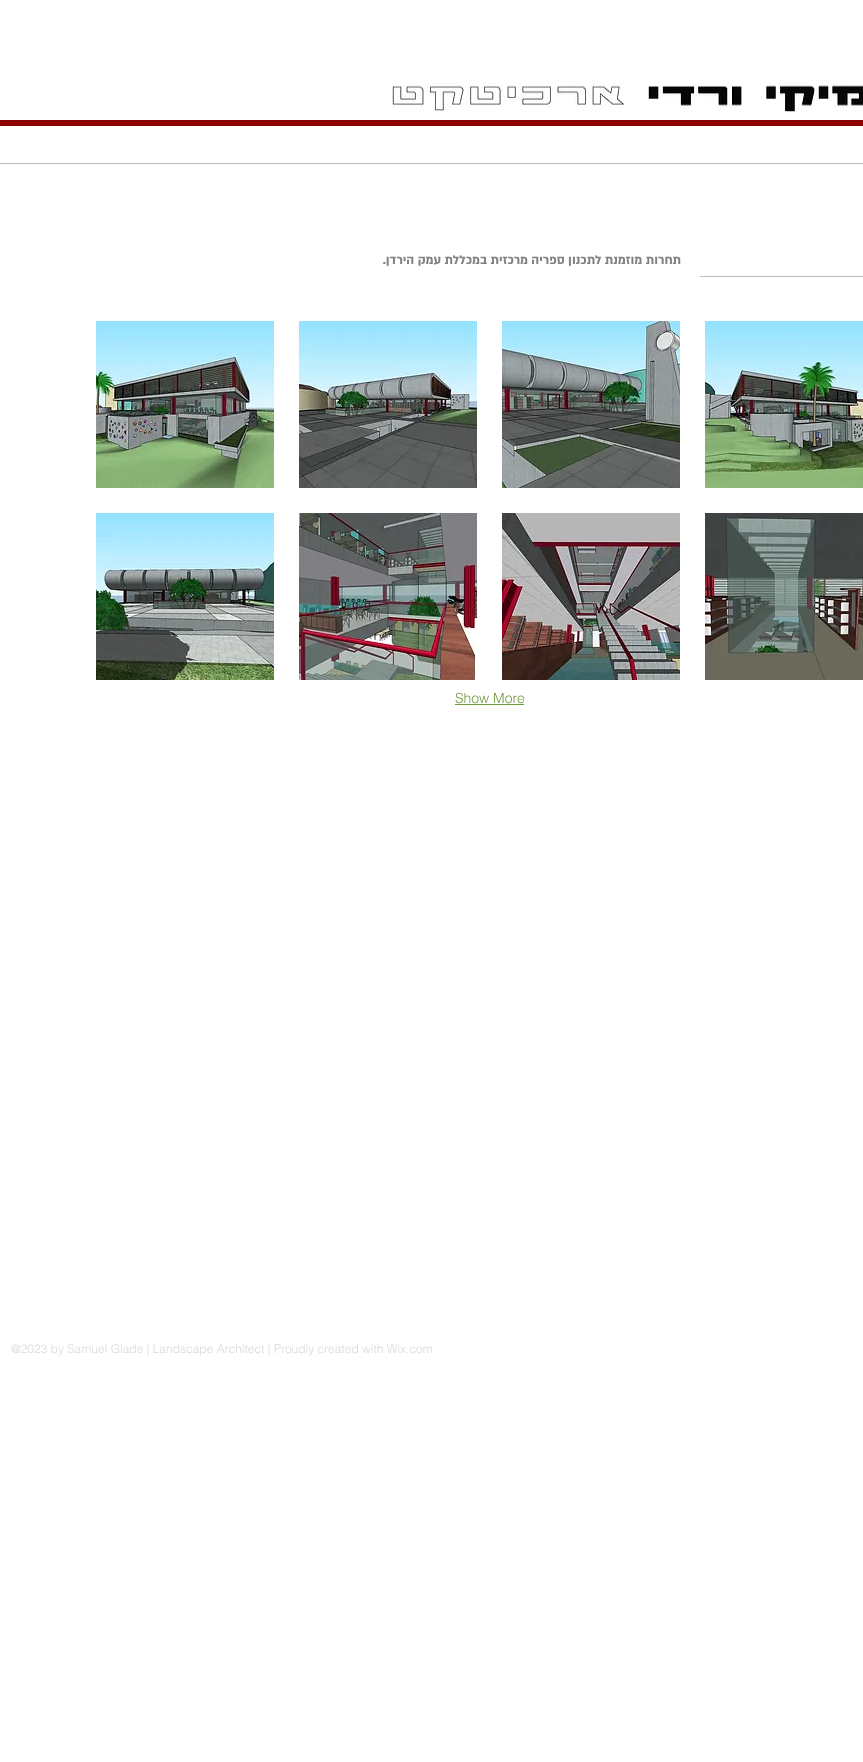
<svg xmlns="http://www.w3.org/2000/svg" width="863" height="1762">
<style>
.a{font:bold 14px 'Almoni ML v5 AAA';direction:rtl;fill:#828282}
.b{font:300 14px helvetica;fill:#719a3c}
.c{font:300 12px helvetica;fill:#d9d9d9}
</style>
<rect width="100%" height="100%" fill="#fff"/>
<image href="1.png" x="392" y="85" width="471" height="27"/>
<path fill="#8b0000" d="M0 120h863v6H0z"/>
<path fill="#bdbdbd" d="M0 163h863v1H0z"/>
<path fill="#bdbdbd" d="M700 276h163v1H700z"/>
<image href="2.png" x="96" y="321" width="178" height="167"/>
<image href="3.png" x="299" y="321" width="178" height="167"/>
<image href="4.png" x="502" y="321" width="178" height="167"/>
<image href="5.png" x="705" y="321" width="158" height="167"/>
<image href="6.png" x="96" y="513" width="178" height="167"/>
<image href="7.png" x="299" y="513" width="178" height="167"/>
<image href="8.png" x="502" y="513" width="178" height="167"/>
<image href="9.png" x="705" y="513" width="158" height="167"/>
<path fill="#719a3c" d="M455 704h69v1H455z"/>
<text class="a" x="681" y="264">תחרות מוזמנת לתכנון ספריה מרכזית במכללת עמק הירדן.</text>
<text class="b" x="455" y="703">Show More</text>
<text class="c" x="11" y="1353">@2023 by Samuel Glade | Landscape Architect | Proudly created with Wix.com</text>
</svg>
